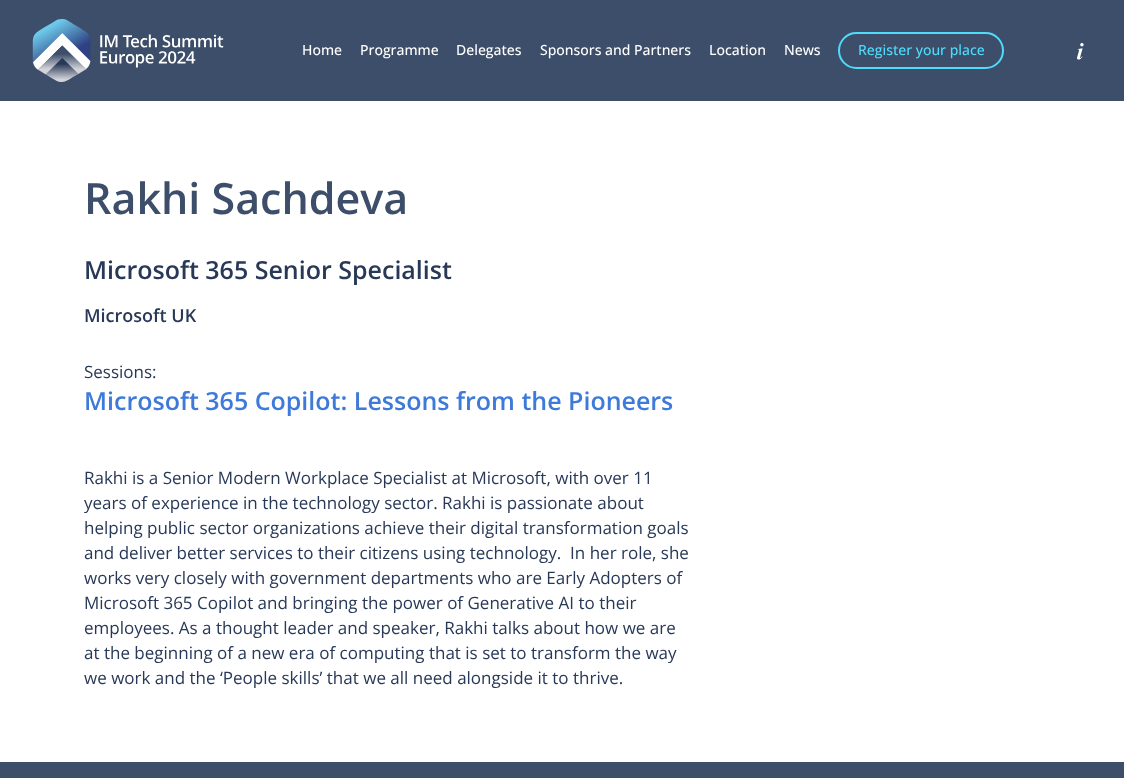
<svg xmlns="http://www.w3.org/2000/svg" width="1124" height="778">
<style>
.a{font:500 14px Open Sans;fill:#fff}
.b{font:500 14px Open Sans;fill:#4fdcfb}
.c{font:600 43px Open Sans;fill:#3c4e69}
.d{font:600 25px Open Sans;fill:#283857}
.e{font:600 18px Open Sans;fill:#283857}
.f{font:17px Open Sans;fill:#283857}
.g{font:600 25px Open Sans;fill:#3d7ad9}
</style>
<rect width="100%" height="100%" fill="#3c4e69"/>
<image href="1.png" x="32" y="19" width="192" height="63"/>
<rect fill="none" stroke="#4fdcfb" stroke-width="2" x="839" y="33" width="164" height="35" rx="17.5"/>
<image href="2.png" x="1077" y="43" width="7" height="17"/>
<path fill="#fff" d="M0 101h1124v661H0z"/>
<text class="a" x="302" y="55">Home</text>
<text class="a" x="360" y="55">Programme</text>
<text class="a" x="456" y="55">Delegates</text>
<text class="a" x="540" y="55">Sponsors and Partners</text>
<text class="a" x="709" y="55">Location</text>
<text class="a" x="784" y="55">News</text>
<text class="b" x="858" y="55">Register your place</text>
<text class="c" x="84" y="214">Rakhi Sachdeva</text>
<text class="d" x="84" y="279">Microsoft 365 Senior Specialist</text>
<text class="e" x="84" y="322">Microsoft UK</text>
<text class="f" x="84" y="378">Sessions:</text>
<text class="g" x="84" y="410">Microsoft 365 Copilot: Lessons from the Pioneers</text>
<text class="f" x="84" y="484">Rakhi is a Senior Modern Workplace Specialist at Microsoft, with over 11</text>
<text class="f" x="84" y="509">years of experience in the technology sector. Rakhi is passionate about</text>
<text class="f" x="84" y="534">helping public sector organizations achieve their digital transformation goals</text>
<text class="f" xml:space="preserve" x="84" y="559">and deliver better services to their citizens using technology.  In her role, she</text>
<text class="f" x="84" y="584">works very closely with government departments who are Early Adopters of</text>
<text class="f" x="84" y="609">Microsoft 365 Copilot and bringing the power of Generative AI to their</text>
<text class="f" x="84" y="634">employees. As a thought leader and speaker, Rakhi talks about how we are</text>
<text class="f" x="84" y="659">at the beginning of a new era of computing that is set to transform the way</text>
<text class="f" x="84" y="684">we work and the ‘People skills’ that we all need alongside it to thrive.</text>
</svg>
